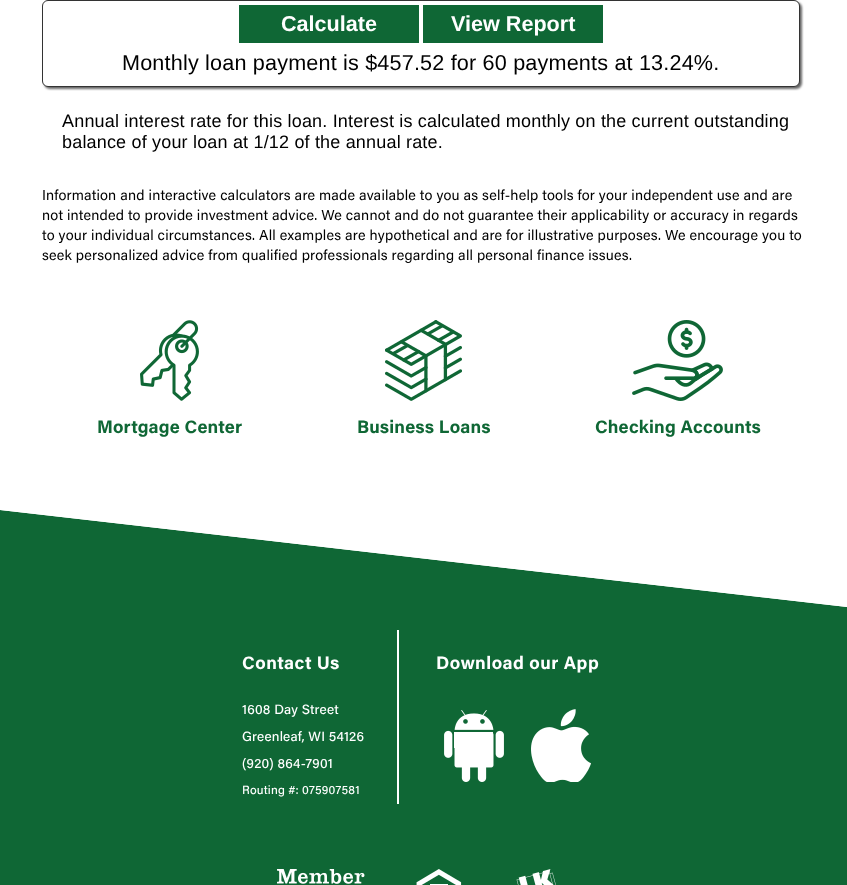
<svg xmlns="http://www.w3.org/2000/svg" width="847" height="885">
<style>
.a{font:bold 21.6px Liberation Sans;fill:#fff}
.b{font:21.6px Liberation Sans;letter-spacing:0.18px;fill:#000}
.c{font:18px Liberation Sans;letter-spacing:0.18px;fill:#000}
.d{font:14.4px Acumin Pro;letter-spacing:0.18px;fill:#000}
.e{font:bold 18px Acumin Pro;letter-spacing:0.18px;fill:#0f6735}
.f{font:bold 18px Acumin Pro;letter-spacing:0.5px;fill:#fff}
.g{font:500 13.5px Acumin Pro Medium;letter-spacing:0.18px;fill:#fff}
.h{font:500 12px Acumin Pro Medium;letter-spacing:0.18px;fill:#fff}
</style>
<rect width="100%" height="100%" fill="#fff"/>
<rect fill="#666" filter="blur(1px)" x="44" y="2" width="758" height="87" rx="6"/>
<rect fill="#fff" stroke="#333" x="42.5" y="0.5" width="757" height="86" rx="5.5"/>
<path fill="#0f6735" d="M239 5h180v38H239z"/>
<path fill="#0f6735" d="M423 5h180v38H423z"/>
<image href="1.png" x="140" y="320" width="59" height="81"/>
<image href="2.png" x="385" y="320" width="77" height="81"/>
<image href="3.png" x="632" y="320" width="91" height="81"/>
<path fill="#0f6735" d="M0 510l847 97v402l-847-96z"/>
<path fill="#fff" d="M0 500l847 97v10l-847-97z"/>
<path fill="#fff" d="M397 630h2v174H397z"/>
<image href="4.png" x="444" y="710" width="60" height="72"/>
<image href="5.png" x="531" y="709" width="60" height="73"/>
<image href="6.png" x="277" y="869" width="88" height="15"/>
<image href="7.png" x="416" y="869" width="46" height="16"/>
<image href="8.png" x="516" y="869" width="40" height="16"/>
<text class="a" x="281" y="31">Calculate</text>
<text class="a" x="451" y="31">View Report</text>
<text class="b" x="122" y="70">Monthly loan payment is $457.52 for 60 payments at 13.24%.</text>
<text class="c" x="62" y="127">Annual interest rate for this loan. Interest is calculated monthly on the current outstanding</text>
<text class="c" x="62" y="148">balance of your loan at 1/12 of the annual rate.</text>
<text class="d" x="42" y="200">Information and interactive calculators are made available to you as self-help tools for your independent use and are</text>
<text class="d" x="42" y="220">not intended to provide investment advice. We cannot and do not guarantee their applicability or accuracy in regards</text>
<text class="d" x="42" y="240">to your individual circumstances. All examples are hypothetical and are for illustrative purposes. We encourage you to</text>
<text class="d" x="42" y="260">seek personalized advice from qualified professionals regarding all personal finance issues.</text>
<text class="e" x="97" y="433">Mortgage Center</text>
<text class="e" x="357" y="433">Business Loans</text>
<text class="e" x="595" y="433">Checking Accounts</text>
<text class="f" x="242" y="669">Contact Us</text>
<text class="g" x="242" y="714">1608 Day Street</text>
<text class="g" x="242" y="741">Greenleaf, WI 54126</text>
<text class="g" x="242" y="768">(920) 864-7901</text>
<text class="h" x="242" y="794">Routing #: 075907581</text>
<text class="f" x="436" y="669">Download our App</text>
</svg>
